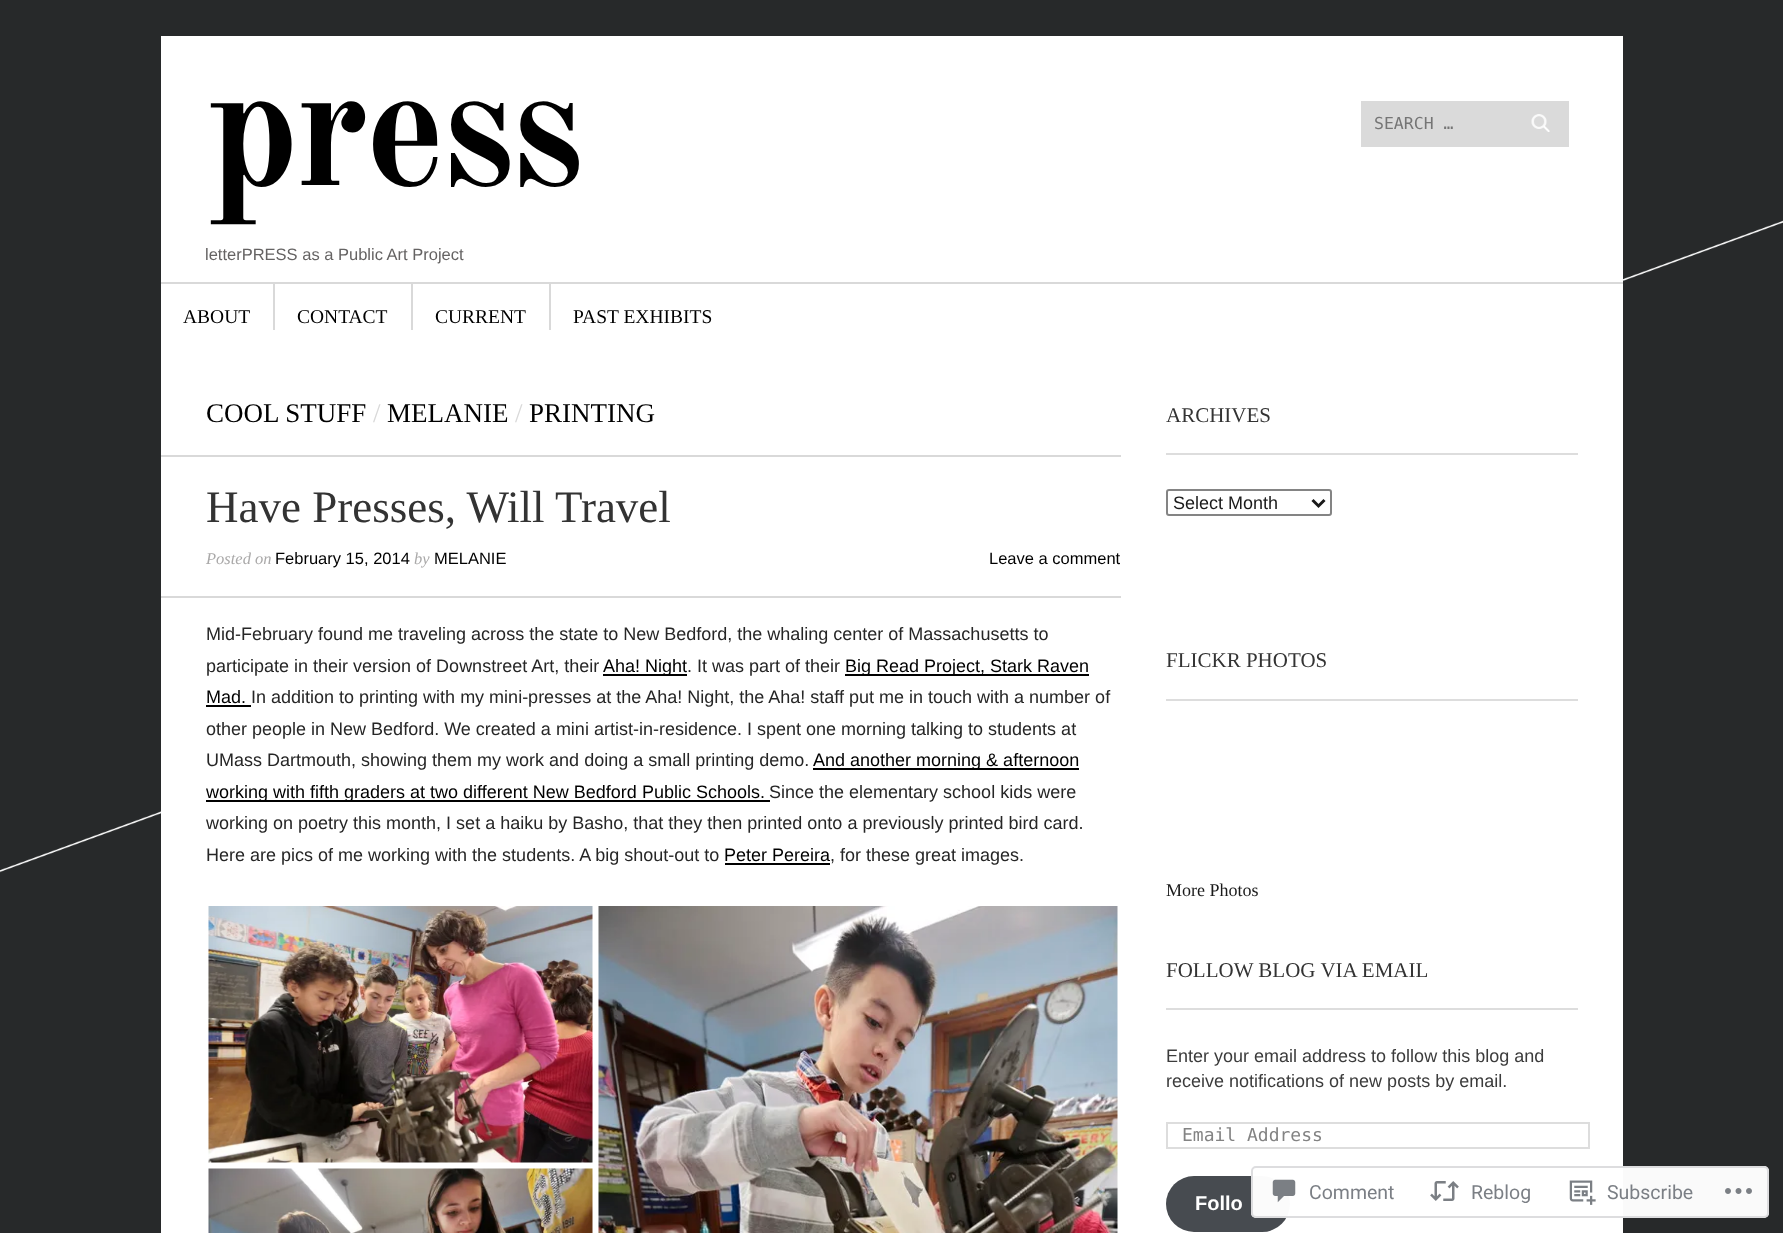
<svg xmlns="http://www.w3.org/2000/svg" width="1783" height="1233">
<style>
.a{font:bold 172.5px Old Standard TT;letter-spacing:-5px;fill:#000}
.b{font:16.5px Liberation Sans;fill:#656363}
.c{font:16.5px DejaVu Sans Mono;fill:#757575}
.d{font:19.5px Liberation Serif;fill:#000}
.e{font:27px Liberation Serif;fill:#000}
.f{font:27px Liberation Serif;fill:#d9d9d9}
.g{font:45px Liberation Serif;fill:#333}
.h{font:italic 16.5px Liberation Serif;fill:#aaa9a9}
.i{font:16.5px Liberation Sans;fill:#000}
.j{font:18px Liberation Sans;fill:#262626}
.k{font:18px Liberation Sans;fill:#000}
.l{font:21px Liberation Serif;fill:#333}
.m{font:18px Liberation Sans;fill:#1a1a1a}
.n{font:18px Liberation Serif;fill:#1a1a1a}
.o{font:18px Liberation Sans;fill:#3c3c3c}
.p{font:18px DejaVu Sans Mono;fill:#838383}
.q{font:bold 20px Liberation Sans;fill:#fff}
.r{font:19.5px Roboto;fill:#7b7f85}
</style>
<rect width="100%" height="100%" fill="#27292a"/>
<image href="1.png" x="0" y="220" width="1783" height="653"/>
<path fill="#fff" d="M161 36h1462v1197H161z"/>
<path fill="#dadada" d="M1361 101h208v46H1361z"/>
<image href="2.png" x="1531" y="114" width="19" height="18"/>
<path fill="#d9d9d9" d="M161 282h1462v2H161z"/>
<path fill="#d9d9d9" d="M273 284h2v46H273z"/>
<path fill="#d9d9d9" d="M411 284h2v46H411z"/>
<path fill="#d9d9d9" d="M549 284h2v46H549z"/>
<path fill="#d9d9d9" d="M161 455h960v2H161z"/>
<path fill="#d9d9d9" d="M161 596h960v2H161z"/>
<path fill="#000" d="M603 674h84v2H603z"/>
<path fill="#000" d="M845 674h244v2H845z"/>
<path fill="#000" d="M206 705h45v2H206z"/>
<path fill="#000" d="M813 768h266v2H813z"/>
<path fill="#000" d="M206 800h564v2H206z"/>
<path fill="#000" d="M725 863h105v2H725z"/>
<image href="3.png" x="208" y="906" width="385" height="257"/>
<image href="4.png" x="208" y="1168" width="385" height="65"/>
<image href="5.png" x="598" y="906" width="520" height="327"/>
<path fill="#ddd" d="M1166 453h412v2H1166z"/>
<rect fill="none" stroke="#848484" stroke-width="2" x="1167" y="490" width="164" height="25" rx="2"/>
<path fill="none" stroke="#1a1a1a" stroke-width="3" d="M1312.5 500l6 6l6-6"/>
<path fill="#ddd" d="M1166 699h412v2H1166z"/>
<path fill="#ddd" d="M1166 1008h412v2H1166z"/>
<path fill="none" stroke="#ddd" stroke-width="2" d="M1167 1123h422v25H1167z"/>
<rect fill="#474b50" x="1166" y="1176" width="124" height="56" rx="28"/>
<rect fill="#fffffffa" x="1251" y="1166" width="518" height="52" rx="5"/>
<rect fill="none" stroke="#dcdcdefa" stroke-width="2" x="1252" y="1167" width="516" height="50" rx="4"/>
<image href="6.png" x="1272" y="1179" width="24" height="24"/>
<image href="7.png" x="1430" y="1181" width="29" height="20"/>
<image href="8.png" x="1569" y="1180" width="27" height="25"/>
<image href="9.png" x="1725" y="1188" width="27" height="6"/>
<text class="a" x="206" y="185">press</text>
<text class="b" x="205" y="260">letterPRESS as a Public Art Project</text>
<text class="c" x="1374" y="129">SEARCH …</text>
<text class="d" x="183" y="323">ABOUT</text>
<text class="d" x="297" y="323">CONTACT</text>
<text class="d" x="435" y="323">CURRENT</text>
<text class="d" x="573" y="323">PAST EXHIBITS</text>
<text class="e" x="206" y="422">COOL STUFF</text>
<text class="f" x="373" y="422">/</text>
<text class="e" x="387" y="422">MELANIE</text>
<text class="f" x="515" y="422">/</text>
<text class="e" x="529" y="422">PRINTING</text>
<text class="g" x="206" y="522">Have Presses, Will Travel</text>
<text class="h" x="206" y="564">Posted on</text>
<text class="i" x="275" y="564">February 15, 2014</text>
<text class="h" x="414" y="564">by</text>
<text class="i" x="434" y="564">MELANIE</text>
<text class="i" x="989" y="564">Leave a comment</text>
<text class="j" x="206" y="640">Mid-February found me traveling across the state to New Bedford, the whaling center of Massachusetts to</text>
<text class="j" x="206" y="672">participate in their version of Downstreet Art, their</text>
<text class="k" x="603" y="672">Aha! Night</text>
<text class="j" x="687" y="672">. It was part of their</text>
<text class="k" x="845" y="672">Big Read Project, Stark Raven</text>
<text class="k" x="206" y="703">Mad.</text>
<text class="j" x="251" y="703">In addition to printing with my mini-presses at the Aha! Night, the Aha! staff put me in touch with a number of</text>
<text class="j" x="206" y="735">other people in New Bedford. We created a mini artist-in-residence. I spent one morning talking to students at</text>
<text class="j" x="206" y="766">UMass Dartmouth, showing them my work and doing a small printing demo.</text>
<text class="k" x="813" y="766">And another morning &amp; afternoon</text>
<text class="k" x="206" y="798">working with fifth graders at two different New Bedford Public Schools.</text>
<text class="j" x="769" y="798">Since the elementary school kids were</text>
<text class="j" x="206" y="829">working on poetry this month, I set a haiku by Basho, that they then printed onto a previously printed bird card.</text>
<text class="j" x="206" y="861">Here are pics of me working with the students. A big shout-out to</text>
<text class="k" x="724" y="861">Peter Pereira</text>
<text class="j" x="830" y="861">, for these great images.</text>
<text class="l" x="1166" y="422">ARCHIVES</text>
<text class="m" x="1173" y="509">Select Month</text>
<text class="l" x="1166" y="667">FLICKR PHOTOS</text>
<text class="n" x="1166" y="896">More Photos</text>
<text class="l" x="1166" y="977">FOLLOW BLOG VIA EMAIL</text>
<text class="o" x="1166" y="1062">Enter your email address to follow this blog and</text>
<text class="o" x="1166" y="1087">receive notifications of new posts by email.</text>
<text class="p" x="1182" y="1141">Email Address</text>
<text class="q" x="1195" y="1210">Follo</text>
<text class="r" x="1309" y="1199">Comment</text>
<text class="r" x="1471" y="1199">Reblog</text>
<text class="r" x="1607" y="1199">Subscribe</text>
</svg>
